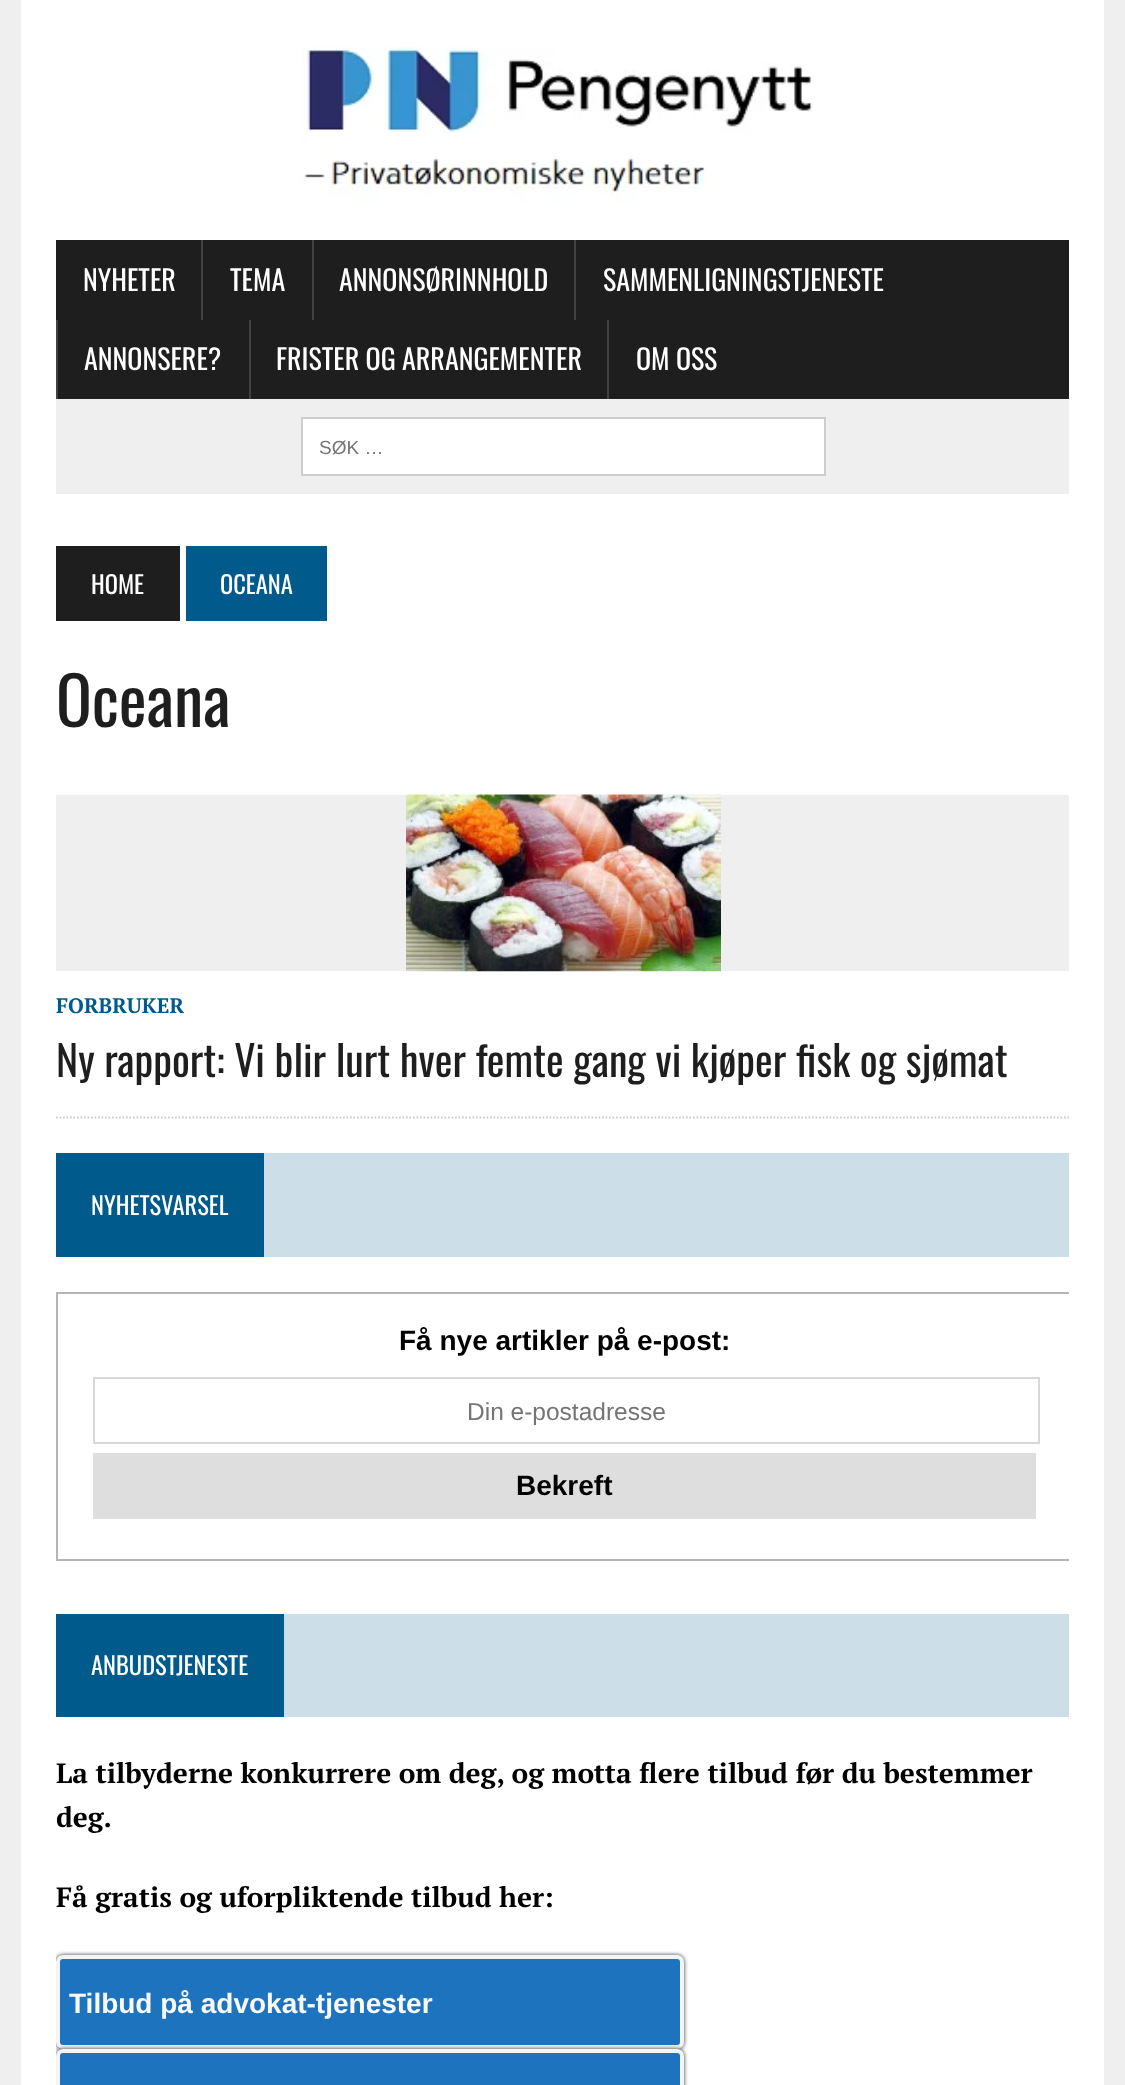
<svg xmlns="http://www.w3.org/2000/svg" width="1125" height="2085">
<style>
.a{font:28px Oswald;fill:#fff}
.b{font:19px Liberation Sans;fill:#757575}
.c{font:24.5px Oswald;fill:#fff}
.d{font:66.5px Oswald;fill:#1f1e1e}
.e{font:bold 21px PT Serif;fill:#005a8c}
.f{font:42px Oswald;fill:#1f1e1e}
.g{font:bold 28px Liberation Sans;fill:#000}
.h{font:24.5px Liberation Sans;fill:#757575}
.i{font:bold 28px PT Serif;fill:#000}
.j{font:bold 28px Liberation Sans;fill:#f9f9f9}
</style>
<defs>
<clipPath id="clip1"><path d="M56 1153h1013v408H56z"/></clipPath>
<clipPath id="clip2"><path d="M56 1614h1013v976H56z"/></clipPath>
</defs>
<rect width="100%" height="100%" fill="#efefef"/>
<path fill="#fff" d="M21 0h1083v2085H21z"/>
<image href="1.png" x="301" y="47" width="512" height="156"/>
<path fill="#1f1e1e" d="M56 240h1013v159H56z"/>
<path fill="#424242" d="M201 240h2v80H201z"/>
<path fill="#424242" d="M312 240h2v80H312z"/>
<path fill="#424242" d="M574 240h2v80H574z"/>
<path fill="#424242" d="M56 320h2v79H56z"/>
<path fill="#424242" d="M249 320h2v79H249z"/>
<path fill="#424242" d="M607 320h2v79H607z"/>
<path fill="#efefef" d="M56 399h1013v95H56z"/>
<path fill="#fff" stroke="#cdcdcd" stroke-width="2" d="M302 418h523v57H302z"/>
<path fill="#1f1e1e" d="M56 546h124v75H56z"/>
<path fill="#005a8c" d="M186 546h141v75H186z"/>
<path fill="#efefef" d="M56 795h1013v176H56z"/>
<image href="2.png" x="406" y="794" width="315" height="178"/>
<path fill="none" stroke="#cdcdcd" stroke-width="1.8" stroke-dasharray="1.75 1.75" d="M56 1117.5h1013"/>
<path fill="#ccdee8" d="M264 1153h805v104H264z"/>
<path fill="#005a8c" d="M56 1153h208v104H56z"/>
<g clip-path="url(#clip1)">
<path fill="none" stroke="#b5b5b5" stroke-width="2" d="M57 1293h1015v267H57z"/>
</g>
<path fill="none" stroke="#d7d8d8" stroke-width="2" d="M94 1378h945v65H94z"/>
<path fill="#dedede" d="M93 1453h943v66H93z"/>
<path fill="#ccdee8" d="M284 1614h785v103H284z"/>
<path fill="#005a8c" d="M56 1614h228v103H56z"/>
<g clip-path="url(#clip2)">
<rect fill="#333" filter="blur(2px)" x="56" y="1955" width="628" height="94" rx="7"/>
</g>
<rect fill="#1e73be" stroke="#f4f4f4" stroke-width="4" x="58" y="1957" width="624" height="90" rx="5"/>
<g clip-path="url(#clip2)">
<rect fill="#333" filter="blur(2px)" x="56" y="2049" width="628" height="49" rx="7"/>
</g>
<rect fill="#1e73be" stroke="#f4f4f4" stroke-width="4" x="58" y="2051" width="624" height="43" rx="5"/>
<text class="a" x="83" y="291">NYHETER</text>
<text class="a" x="230" y="291">TEMA</text>
<text class="a" x="339" y="291">ANNONSØRINNHOLD</text>
<text class="a" x="603" y="291">SAMMENLIGNINGSTJENESTE</text>
<text class="a" x="84" y="370">ANNONSERE?</text>
<text class="a" x="276" y="370">FRISTER OG ARRANGEMENTER</text>
<text class="a" x="636" y="370">OM OSS</text>
<text class="b" x="319" y="454">SØK …</text>
<text class="c" x="91" y="594">HOME</text>
<text class="c" x="220" y="594">OCEANA</text>
<text class="d" x="56" y="727">Oceana</text>
<text class="e" x="56" y="1013">FORBRUKER</text>
<text class="f" x="56" y="1077">Ny rapport: Vi blir lurt hver femte gang vi kjøper fisk og sjømat</text>
<text class="c" x="91" y="1215">NYHETSVARSEL</text>
<text class="g" x="399" y="1350">Få nye artikler på e-post:</text>
<text class="h" x="467" y="1420">Din e-postadresse</text>
<text class="g" x="516" y="1495">Bekreft</text>
<text class="c" x="91" y="1675">ANBUDSTJENESTE</text>
<text class="i" x="56" y="1783">La tilbyderne konkurrere om deg, og motta flere tilbud før du bestemmer</text>
<text class="i" x="56" y="1827">deg.</text>
<text class="i" x="56" y="1907">Få gratis og uforpliktende tilbud her:</text>
<text class="j" x="69" y="2013">Tilbud på advokat-tjenester</text>
</svg>
